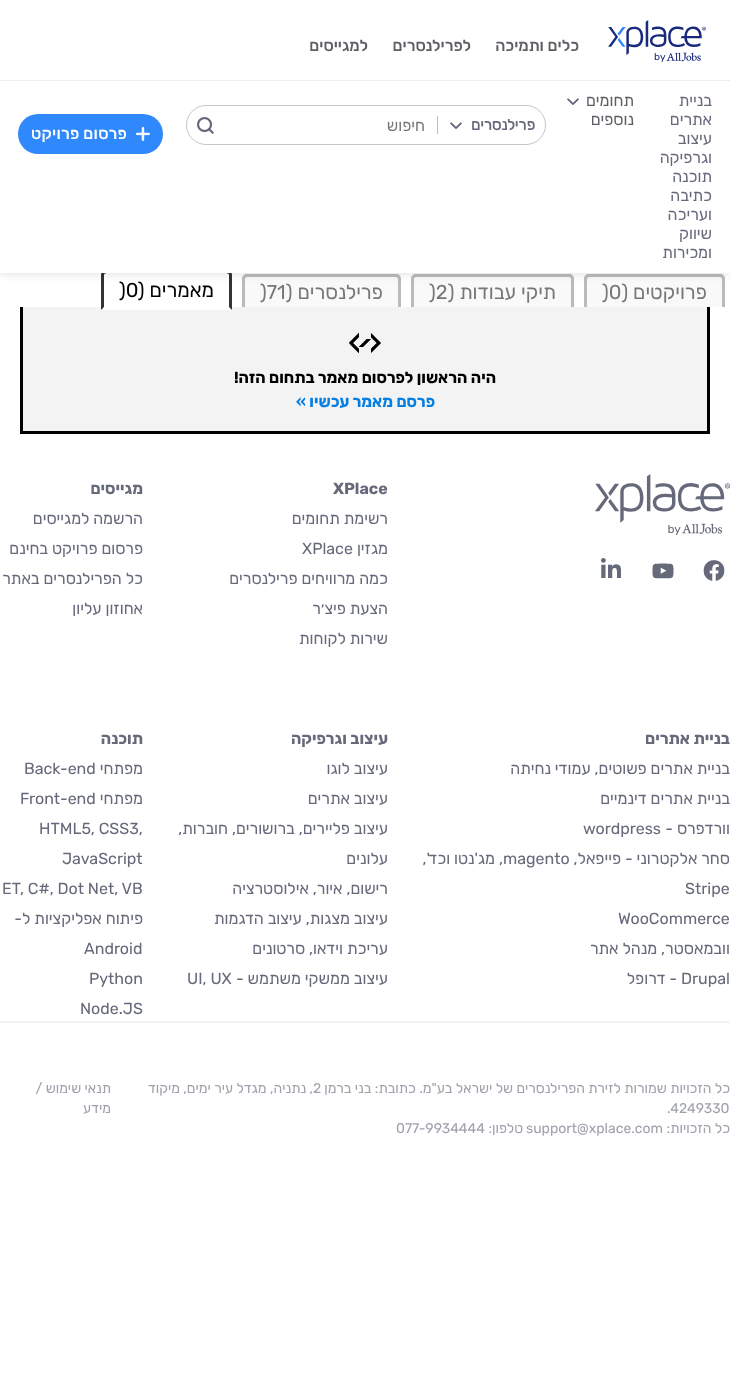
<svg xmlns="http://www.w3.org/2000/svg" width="730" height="1373">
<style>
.a{font:500 16px Rubik;direction:rtl;fill:#5e5f64}
.b{font:16px 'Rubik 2';direction:rtl;fill:#66697a}
.c{font:16px 'Rubik 2';direction:rtl;fill:#5e5f64}
.d{font:bold 15px 'Rubik 2';direction:rtl;fill:#66697a}
.e{font:16px 'Rubik 2';direction:rtl;fill:#777}
.f{font:500 16px 'Rubik 2';letter-spacing:0.25px;direction:rtl;fill:#fff}
.g{font:20px Rubik;direction:rtl;fill:#777}
.h{font:20px Rubik;fill:#777}
.i{font:20px Rubik;direction:rtl;fill:#000}
.j{font:20px Rubik;fill:#000}
.k{font:bold 16px Rubik;direction:rtl;fill:#000}
.l{font:bold 16px Rubik;direction:rtl;fill:#0480e5}
.m{font:bold 16px Rubik;direction:rtl;fill:#66697a}
.n{font:16px Rubik;direction:rtl;fill:#66697a}
.o{font:16px Rubik;fill:#66697a}
.p{font:bold 16px Rubik;fill:#66697a}
.q{font:14px Rubik;direction:rtl;fill:#9fa1ab}
.r{font:14px Rubik;fill:#9fa1ab}
</style>
<rect width="100%" height="100%" fill="#fff"/>
<path fill="#f9f9f9" d="M589 274h131c3 0 5 2 5 5v28h-141v-28c0-3 2-5 5-5z"/>
<path fill="#bbb" fill-rule="evenodd" d="M589 274h131c3 0 5 2 5 5v28h-141v-28c0-3 2-5 5-5zm0 3h131c1 0 2 1 2 2v28h-135v-28c0-1 1-2 2-2z"/>
<path fill="#f9f9f9" d="M416 274h153c3 0 5 2 5 5v28h-163v-28c0-3 2-5 5-5z"/>
<path fill="#bbb" fill-rule="evenodd" d="M416 274h153c3 0 5 2 5 5v28h-163v-28c0-3 2-5 5-5zm0 3h153c1 0 2 1 2 2v28h-157v-28c0-1 1-2 2-2z"/>
<path fill="#f9f9f9" d="M247 274h149c3 0 5 2 5 5v28h-159v-28c0-3 2-5 5-5z"/>
<path fill="#bbb" fill-rule="evenodd" d="M247 274h149c3 0 5 2 5 5v28h-159v-28c0-3 2-5 5-5zm0 3h149c1 0 2 1 2 2v28h-153v-28c0-1 1-2 2-2z"/>
<path fill="#f3f3f3" d="M23 307h684v124H23z"/>
<path fill="#fff" d="M106 270h121c3 0 5 2 5 5v35h-131v-35c0-3 2-5 5-5z"/>
<path fill="#333" d="M106 270c-2 0-3 0-4 1l3 3l1-1h121l1 1l3-3c-1-1-3-1-4-1z"/>
<path fill="#333" d="M232 310v-35c0-1.5-.5-3-1.5-3.5l-2 2l.5 1.5v32z"/>
<path fill="#333" d="M101 310l3-3v-32l.5-1.5l-2-2c-1 .5-1.5 2-1.5 3.5z"/>
<path fill="#00000026" filter="blur(5px)" d="M0 0h730v273H0z"/>
<path fill="#fff" d="M0 0h730v273H0z"/>
<image href="1.png" x="608" y="20" width="98" height="42"/>
<path fill="#ebecee" d="M0 80h730v1H0z"/>
<image href="2.png" x="567" y="98" width="12" height="7"/>
<rect fill="none" stroke="#c5c6cd" x="186.5" y="105.5" width="359" height="39" rx="19.5"/>
<image href="2.png" x="450" y="122" width="12" height="7"/>
<path fill="#babbc3" d="M437 116h1v18H437z"/>
<image href="3.png" x="197" y="117" width="17" height="17"/>
<rect fill="#2f89fc" x="18" y="114" width="145" height="40" rx="20"/>
<image href="4.png" x="136" y="127" width="14" height="14"/>
<path fill="#000" d="M707 307h3v127H707z"/>
<path fill="#000" d="M20 431h690v3H20z"/>
<path fill="#000" d="M20 307h3v127H20z"/>
<image href="5.png" x="349" y="332" width="32" height="21"/>
<image href="6.png" x="595" y="474" width="135" height="61"/>
<image href="7.png" x="703" y="560" width="22" height="21"/>
<image href="8.png" x="652" y="563" width="22" height="16"/>
<image href="9.png" x="601" y="558" width="20" height="20"/>
<path fill="#f3f4f5" d="M0 1021h730v2H0z"/>
<text class="a" x="579" y="51">כלים ותמיכה</text>
<text class="a" x="471" y="51">לפרילנסרים</text>
<text class="a" x="368" y="51">למגייסים</text>
<text class="b" x="712" y="106">בניית</text>
<text class="b" x="712" y="125">אתרים</text>
<text class="b" x="712" y="144">עיצוב</text>
<text class="b" x="712" y="163">וגרפיקה</text>
<text class="b" x="712" y="182">תוכנה</text>
<text class="b" x="712" y="201">כתיבה</text>
<text class="b" x="712" y="220">ועריכה</text>
<text class="b" x="712" y="239">שיווק</text>
<text class="b" x="712" y="258">ומכירות</text>
<text class="c" x="634" y="106">תחומים</text>
<text class="c" x="634" y="125">נוספים</text>
<text class="d" x="535" y="130">פרילנסרים</text>
<text class="e" x="425" y="131">חיפוש</text>
<text class="f" x="127" y="139">פרסום פרויקט</text>
<text class="g" x="707" y="299">פרויקטים (</text>
<text class="h" x="602" y="299">)0</text>
<text class="g" x="556" y="299">תיקי עבודות (</text>
<text class="h" x="429" y="299">)2</text>
<text class="g" x="383" y="299">פרילנסרים (</text>
<text class="h" x="260" y="299">)71</text>
<text class="i" x="214" y="297">מאמרים (</text>
<text class="j" x="119" y="297">)0</text>
<text class="k" x="496" y="383">היה הראשון לפרסום מאמר בתחום הזה!</text>
<text class="l" x="435" y="407">פרסם מאמר עכשיו »</text>
<text class="m" x="730" y="744">בניית אתרים</text>
<text class="n" x="730" y="774">בניית אתרים פשוטים, עמודי נחיתה</text>
<text class="n" x="730" y="804">בניית אתרים דינמיים</text>
<text class="n" x="730" y="834">וורדפרס -</text>
<text class="o" x="583" y="834">wordpress</text>
<text class="n" x="730" y="864">סחר אלקטרוני - פייפאל,</text>
<text class="o" x="503" y="864">magento</text>
<text class="n" x="503" y="864">, מג'נטו וכד',</text>
<text class="o" x="685" y="894">Stripe</text>
<text class="o" x="618" y="924">WooCommerce</text>
<text class="n" x="730" y="954">וובמאסטר, מנהל אתר</text>
<text class="o" x="681" y="984">Drupal</text>
<text class="n" x="677" y="984">- דרופל</text>
<text class="p" x="333" y="494">XPlace</text>
<text class="n" x="388" y="524">רשימת תחומים</text>
<text class="n" x="388" y="554">מגזין</text>
<text class="o" x="302" y="554">XPlace</text>
<text class="n" x="388" y="584">כמה מרוויחים פרילנסרים</text>
<text class="n" x="388" y="614">הצעת פיצ׳ר</text>
<text class="n" x="388" y="644">שירות לקוחות</text>
<text class="m" x="388" y="744">עיצוב וגרפיקה</text>
<text class="n" x="388" y="774">עיצוב לוגו</text>
<text class="n" x="388" y="804">עיצוב אתרים</text>
<text class="n" x="388" y="834">עיצוב פליירים, ברושורים, חוברות,</text>
<text class="n" x="388" y="864">עלונים</text>
<text class="n" x="388" y="894">רישום, איור, אילוסטרציה</text>
<text class="n" x="388" y="924">עיצוב מצגות, עיצוב הדגמות</text>
<text class="n" x="388" y="954">עריכת וידאו, סרטונים</text>
<text class="n" x="388" y="984">עיצוב ממשקי משתמש -</text>
<text class="o" x="187" y="984">UI, UX</text>
<text class="m" x="143" y="494">מגייסים</text>
<text class="n" x="143" y="524">הרשמה למגייסים</text>
<text class="n" x="143" y="554">פרסום פרויקט בחינם</text>
<text class="n" x="143" y="584">כל הפרילנסרים באתר</text>
<text class="n" x="143" y="614">אחוזון עליון</text>
<text class="m" x="143" y="744">תוכנה</text>
<text class="n" x="143" y="774">מפתחי</text>
<text class="o" x="24" y="774">Back-end</text>
<text class="n" x="143" y="804">מפתחי</text>
<text class="o" x="20" y="804">Front-end</text>
<text class="o" x="39" y="834">HTML5, CSS3,</text>
<text class="o" x="62" y="864">JavaScript</text>
<text class="o" x="2" y="894">ET, C#, Dot Net, VB</text>
<text class="n" x="143" y="924">פיתוח אפליקציות ל-</text>
<text class="o" x="84" y="954">Android</text>
<text class="o" x="89" y="984">Python</text>
<text class="o" x="80" y="1014">Node.JS</text>
<text class="q" x="730" y="1093">כל הזכויות שמורות לזירת הפרילנסרים של ישראל בע"מ. כתובת: בני ברמן</text>
<text class="r" x="313" y="1093">2</text>
<text class="q" x="313" y="1093">, נתניה, מגדל עיר ימים, מיקוד</text>
<text class="r" x="667" y="1113">.4249330</text>
<text class="q" x="730" y="1133">כל הזכויות:</text>
<text class="r" x="526" y="1133">support@xplace.com</text>
<text class="q" x="523" y="1133">טלפון:</text>
<text class="r" x="396" y="1133">077-9934444</text>
<text class="q" x="111" y="1093">תנאי שימוש /</text>
<text class="q" x="111" y="1113">מידע</text>
</svg>
